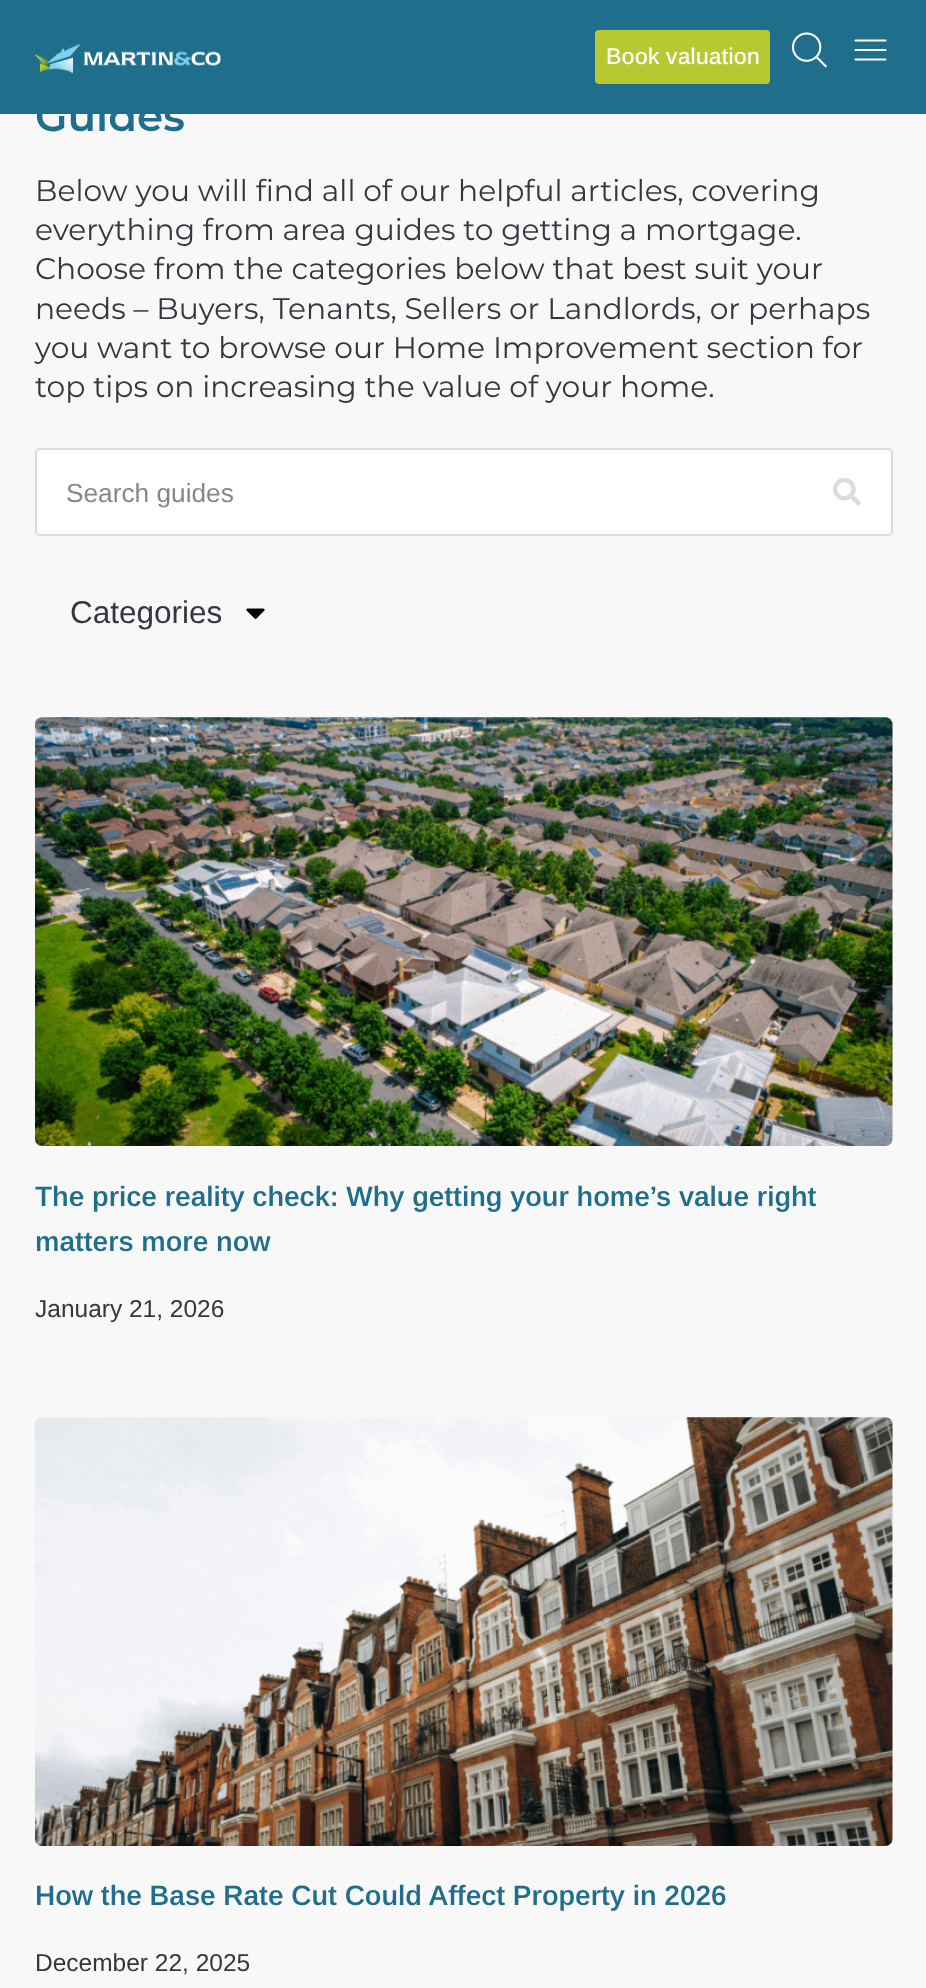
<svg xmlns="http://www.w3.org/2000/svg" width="926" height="1988">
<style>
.a{font:500 22.75px Arimo;fill:#fff}
.b{font:600 42px Montserrat;fill:#1e6e8c}
.c{font:29.75px Montserrat;fill:#34373d}
.d{font:26.25px Arimo;fill:#85878b}
.e{font:31.5px Arimo;fill:#34373d}
.f{font:600 28px Arimo;fill:#1e6e8c}
.g{font:24.5px Arimo;fill:#34373d}
</style>
<defs>
<linearGradient id="g1" gradientUnits="userSpaceOnUse" x1="464" y1="23" x2="464" y2="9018"><stop offset="0.18" stop-color="#f8f8f8"/><stop offset="1" stop-color="#fff"/></linearGradient>
</defs>
<rect width="100%" height="100%" fill="#fff"/>
<path fill="#1e6e8c" d="M0 0h926v114H0z"/>
<image href="1.png" x="35" y="43" width="186" height="31"/>
<rect fill="#b6c931" stroke="#b6c931" stroke-width="2" x="596" y="31" width="173" height="52" rx="3"/>
<image href="2.png" x="791" y="32" width="36" height="36"/>
<path fill="none" stroke="#fff" stroke-width="2.1" stroke-linecap="round" stroke-linejoin="round" d="M855.5 40.5h30m-30 9.5h30m-30 9.5h30"/>
<path fill="url(#g1)" d="M0 114h926v1874H0z"/>
<rect fill="#fff" stroke="#dedcd8" stroke-width="2" x="36" y="449" width="856" height="86" rx="4"/>
<path fill="#fff" d="M803 450h84c2 0 4 2 4 4v76c0 2-2 4-4 4h-84z"/>
<image href="3.png" x="833" y="478" width="28" height="28"/>
<image href="4.png" x="246" y="608" width="19" height="11"/>
<image href="5.png" x="35" y="717" width="858" height="429"/>
<image href="6.png" x="35" y="1417" width="858" height="429"/>
<text class="a" x="606" y="64">Book valuation</text>
<text class="b" x="35" y="131">Guides</text>
<text class="c" x="35" y="201">Below you will find all of our helpful articles, covering</text>
<text class="c" x="35" y="240">everything from area guides to getting a mortgage.</text>
<text class="c" x="35" y="279">Choose from the categories below that best suit your</text>
<text class="c" x="35" y="319">needs – Buyers, Tenants, Sellers or Landlords, or perhaps</text>
<text class="c" x="35" y="358">you want to browse our Home Improvement section for</text>
<text class="c" x="35" y="397">top tips on increasing the value of your home.</text>
<text class="d" x="66" y="502">Search guides</text>
<text class="e" x="70" y="623">Categories</text>
<text class="f" x="35" y="1206">The price reality check: Why getting your home’s value right</text>
<text class="f" x="35" y="1251">matters more now</text>
<text class="g" x="35" y="1317">January 21, 2026</text>
<text class="f" x="35" y="1905">How the Base Rate Cut Could Affect Property in 2026</text>
<text class="g" x="35" y="1971">December 22, 2025</text>
</svg>
